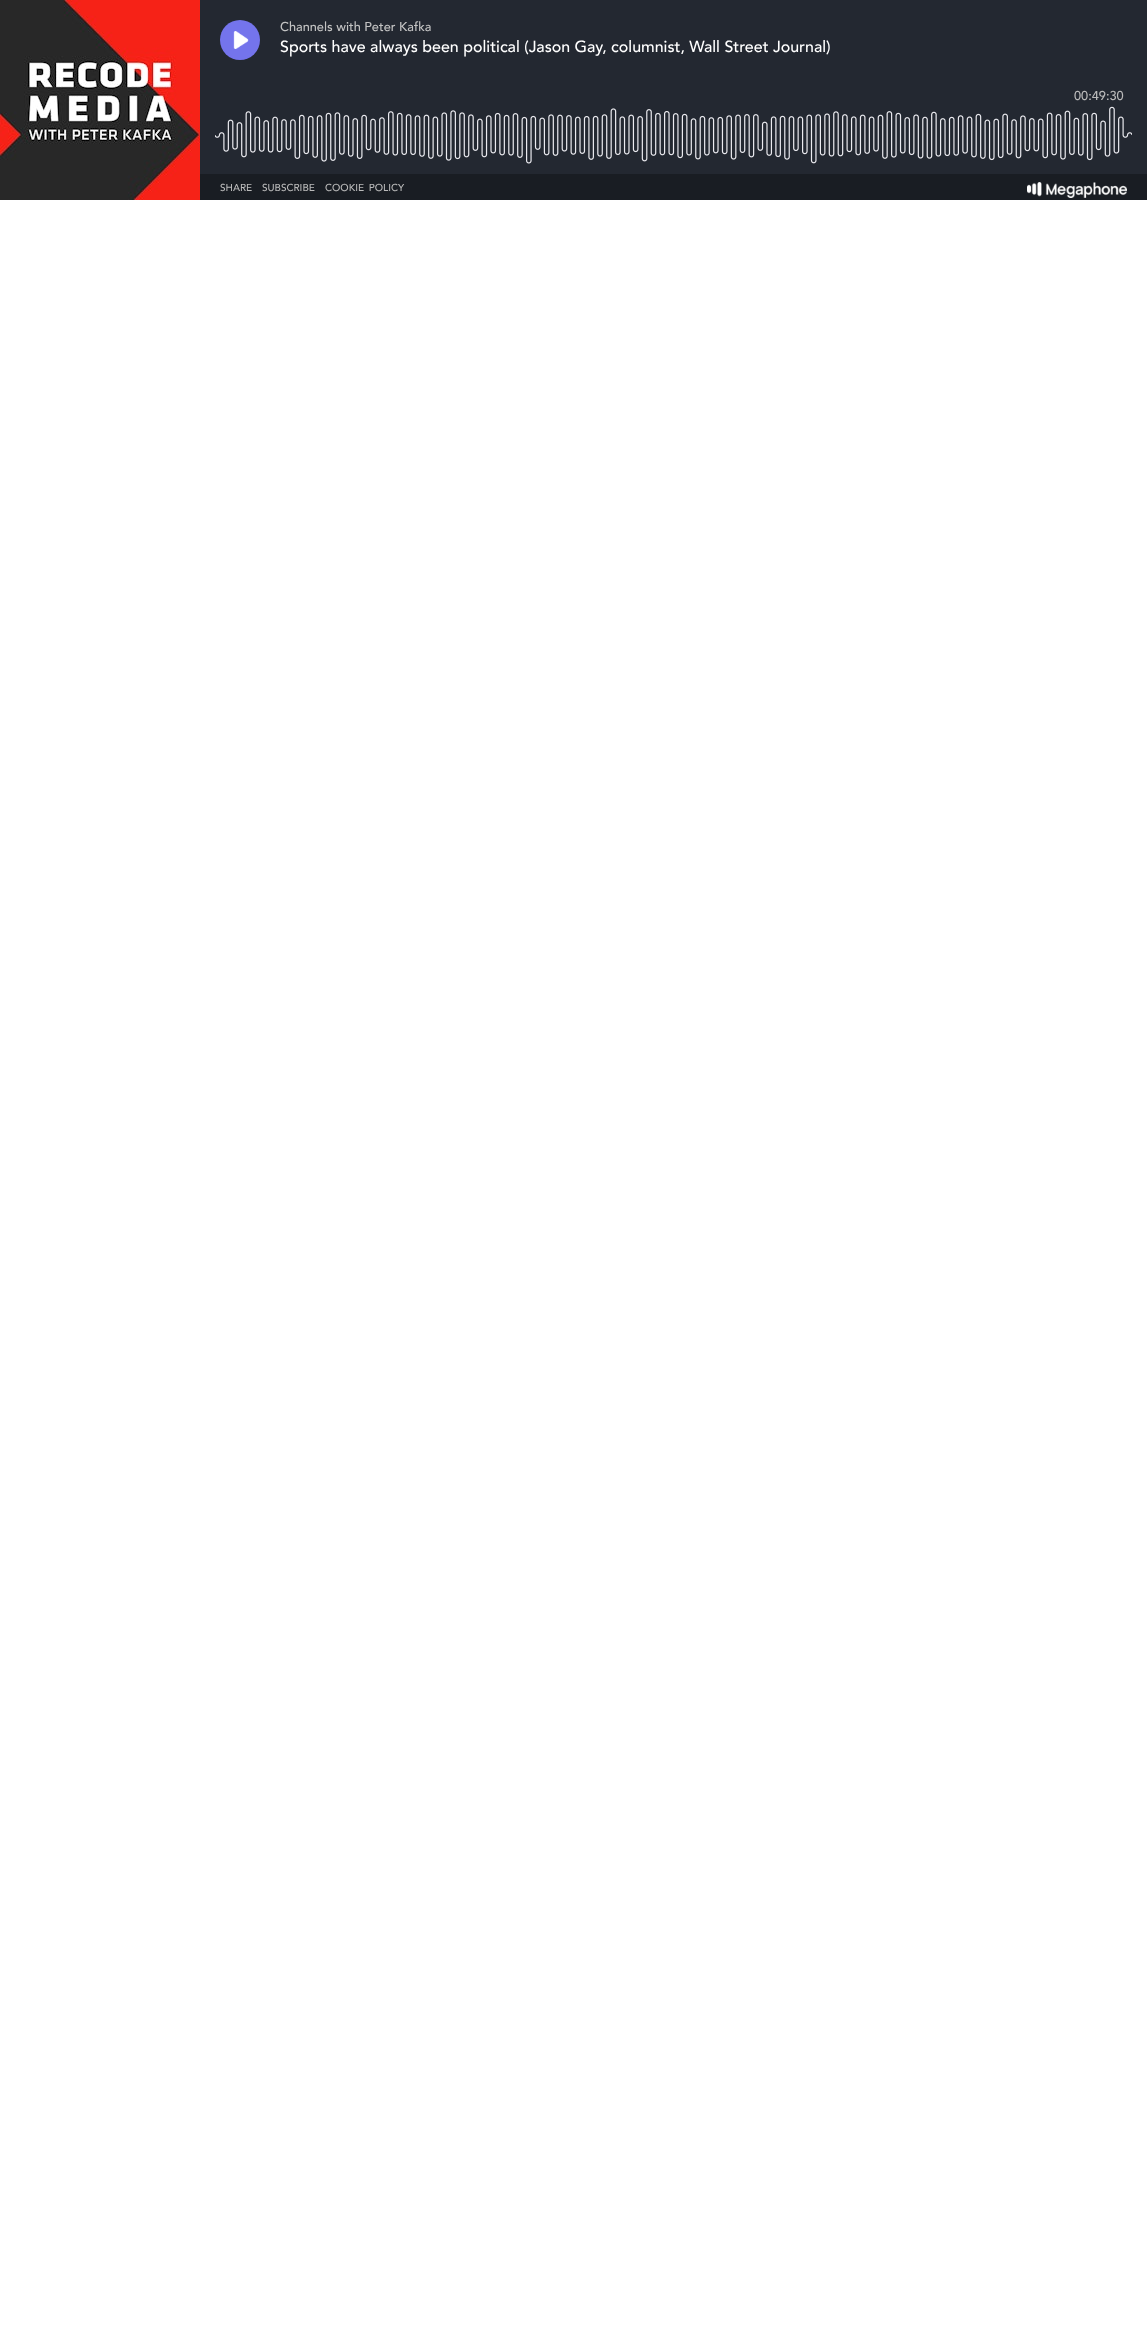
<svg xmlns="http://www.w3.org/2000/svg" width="1147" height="2351">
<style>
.a{font:500 12.75px Avenir;fill:#c3c3c3}
.b{font:500 16px Avenir;fill:#fff}
.c{font:500 12.75px Avenir;fill:#bababa}
.d{font:500 10px Avenir;fill:#bababa}
</style>
<rect width="100%" height="100%" fill="#fff"/>
<image href="1.png" x="0" y="0" width="200" height="200"/>
<path fill="#232831" d="M200 0h947v174H200z"/>
<circle fill="#7474ec" cx="240" cy="40" r="20"/>
<image href="2.png" x="233" y="31" width="16" height="18"/>
<image href="3.png" x="215" y="106" width="917" height="58"/>
<path fill="#191d23" d="M200 174h947v26H200z"/>
<image href="4.png" x="1027" y="182" width="100" height="16"/>
<text class="a" x="280" y="31">Channels with Peter Kafka</text>
<text class="b" x="280" y="52">Sports have always been political (Jason Gay, columnist, Wall Street Journal)</text>
<text class="c" x="1074" y="100">00:49:30</text>
<text class="d" x="220" y="191">SHARE</text>
<text class="d" x="262" y="191">SUBSCRIBE</text>
<text class="d" x="325" y="191" word-spacing="2">COOKIE POLICY</text>
</svg>
